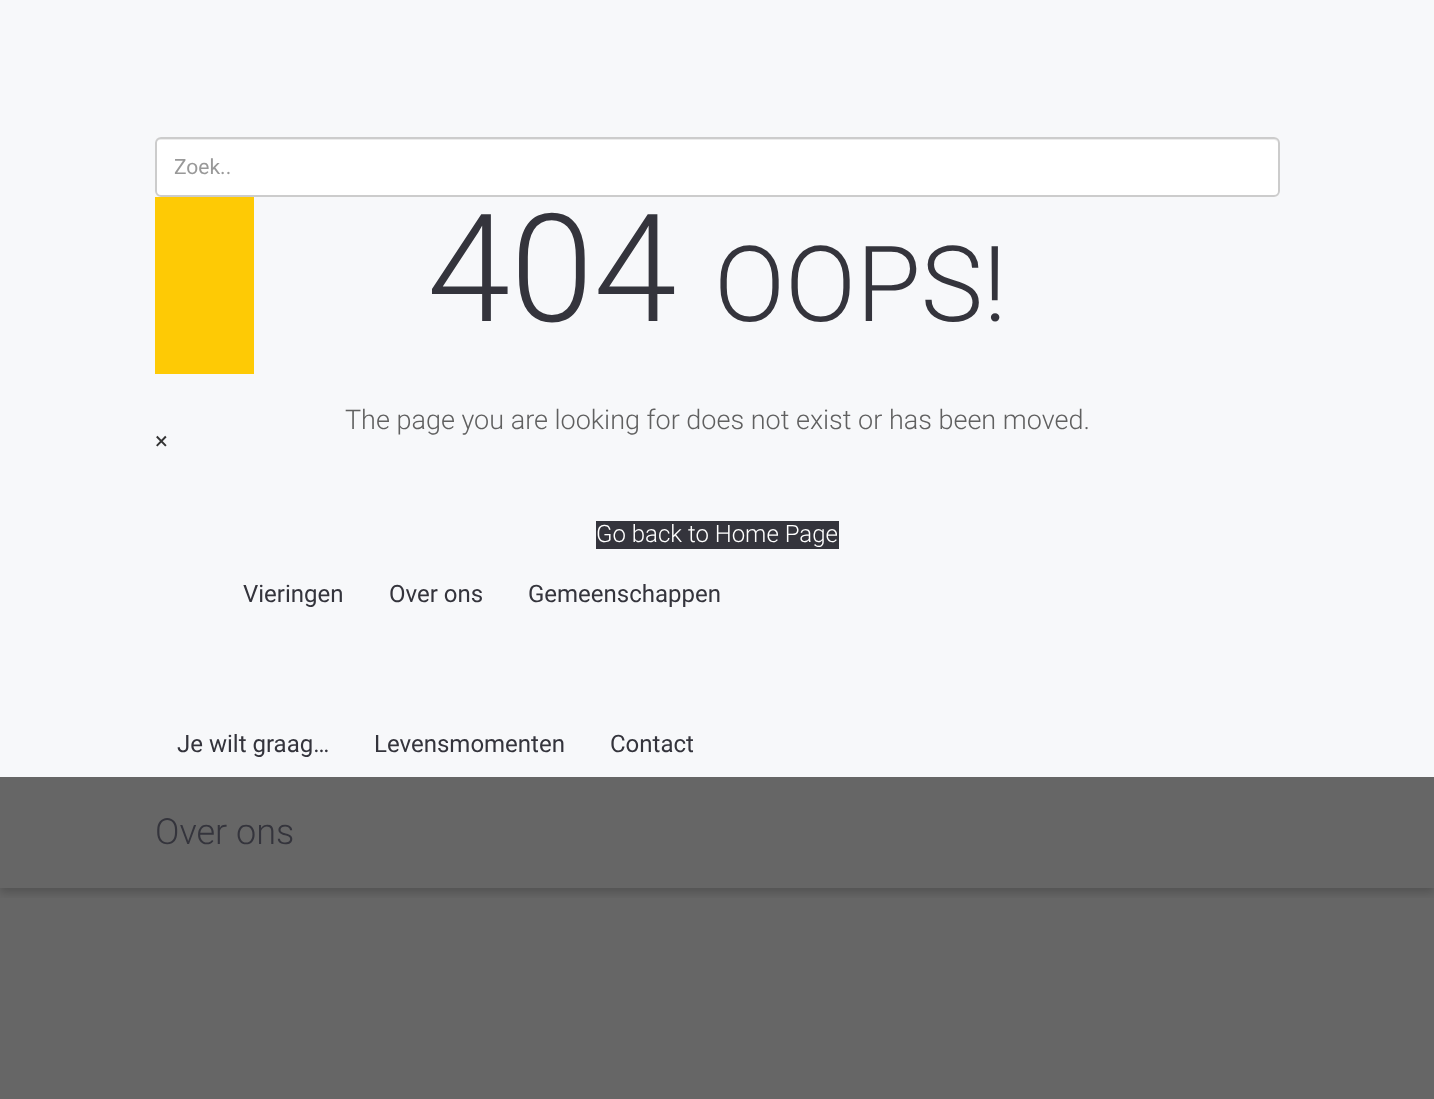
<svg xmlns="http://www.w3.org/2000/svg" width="1434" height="1099">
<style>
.a{font:21px Roboto;fill:#999}
.b{font:24px Roboto;fill:#333}
.c{font:24px Roboto;fill:#34343c}
.d{font:300 150px Roboto;fill:#34343c}
.e{font:300 105px Roboto;fill:#34343c}
.f{font:300 27px Roboto;fill:#606060}
.g{font:300 24px Roboto;fill:#fff}
.h{font:300 36px Roboto;fill:#34343c}
</style>
<defs>
<clipPath id="clip1"><path d="M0 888h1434v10H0z"/></clipPath>
</defs>
<rect width="100%" height="100%" fill="#f7f8fa"/>
<path fill="#34343c" d="M596 521h243v28H596z"/>
<path fill="#666" d="M0 777h1434v322H0z"/>
<g clip-path="url(#clip1)">
<path fill="#0000002e" filter="blur(4px)" d="M0 5h1434v888H0z"/>
</g>
<rect fill="#fff" x="155" y="137" width="1125" height="60" rx="6"/>
<path fill="#ececec" d="M160 140h1114c2 0 4 2 4 4c0-3-2-6-5-6h-1112c-3 0-5 3-5 6c0-2 2-4 4-4z"/>
<rect fill="none" stroke="#ccc" stroke-width="2" x="156" y="138" width="1123" height="58" rx="5"/>
<path fill="#feca05" d="M155 197h99v177H155z"/>
<text class="a" x="174" y="174">Zoek..</text>
<text class="b" x="155" y="449">×</text>
<text class="c" x="243" y="602">Vieringen</text>
<text class="c" x="389" y="602">Over ons</text>
<text class="c" x="528" y="602">Gemeenschappen</text>
<text class="c" x="177" y="752">Je wilt graag…</text>
<text class="c" x="374" y="752">Levensmomenten</text>
<text class="c" x="610" y="752">Contact</text>
<text class="d" x="427" y="321">404</text>
<text class="e" x="714" y="321">OOPS!</text>
<text class="f" x="345" y="429">The page you are looking for does not exist or has been moved.</text>
<text class="g" x="596" y="542">Go back to Home Page</text>
<text class="h" x="155" y="844">Over ons</text>
</svg>
